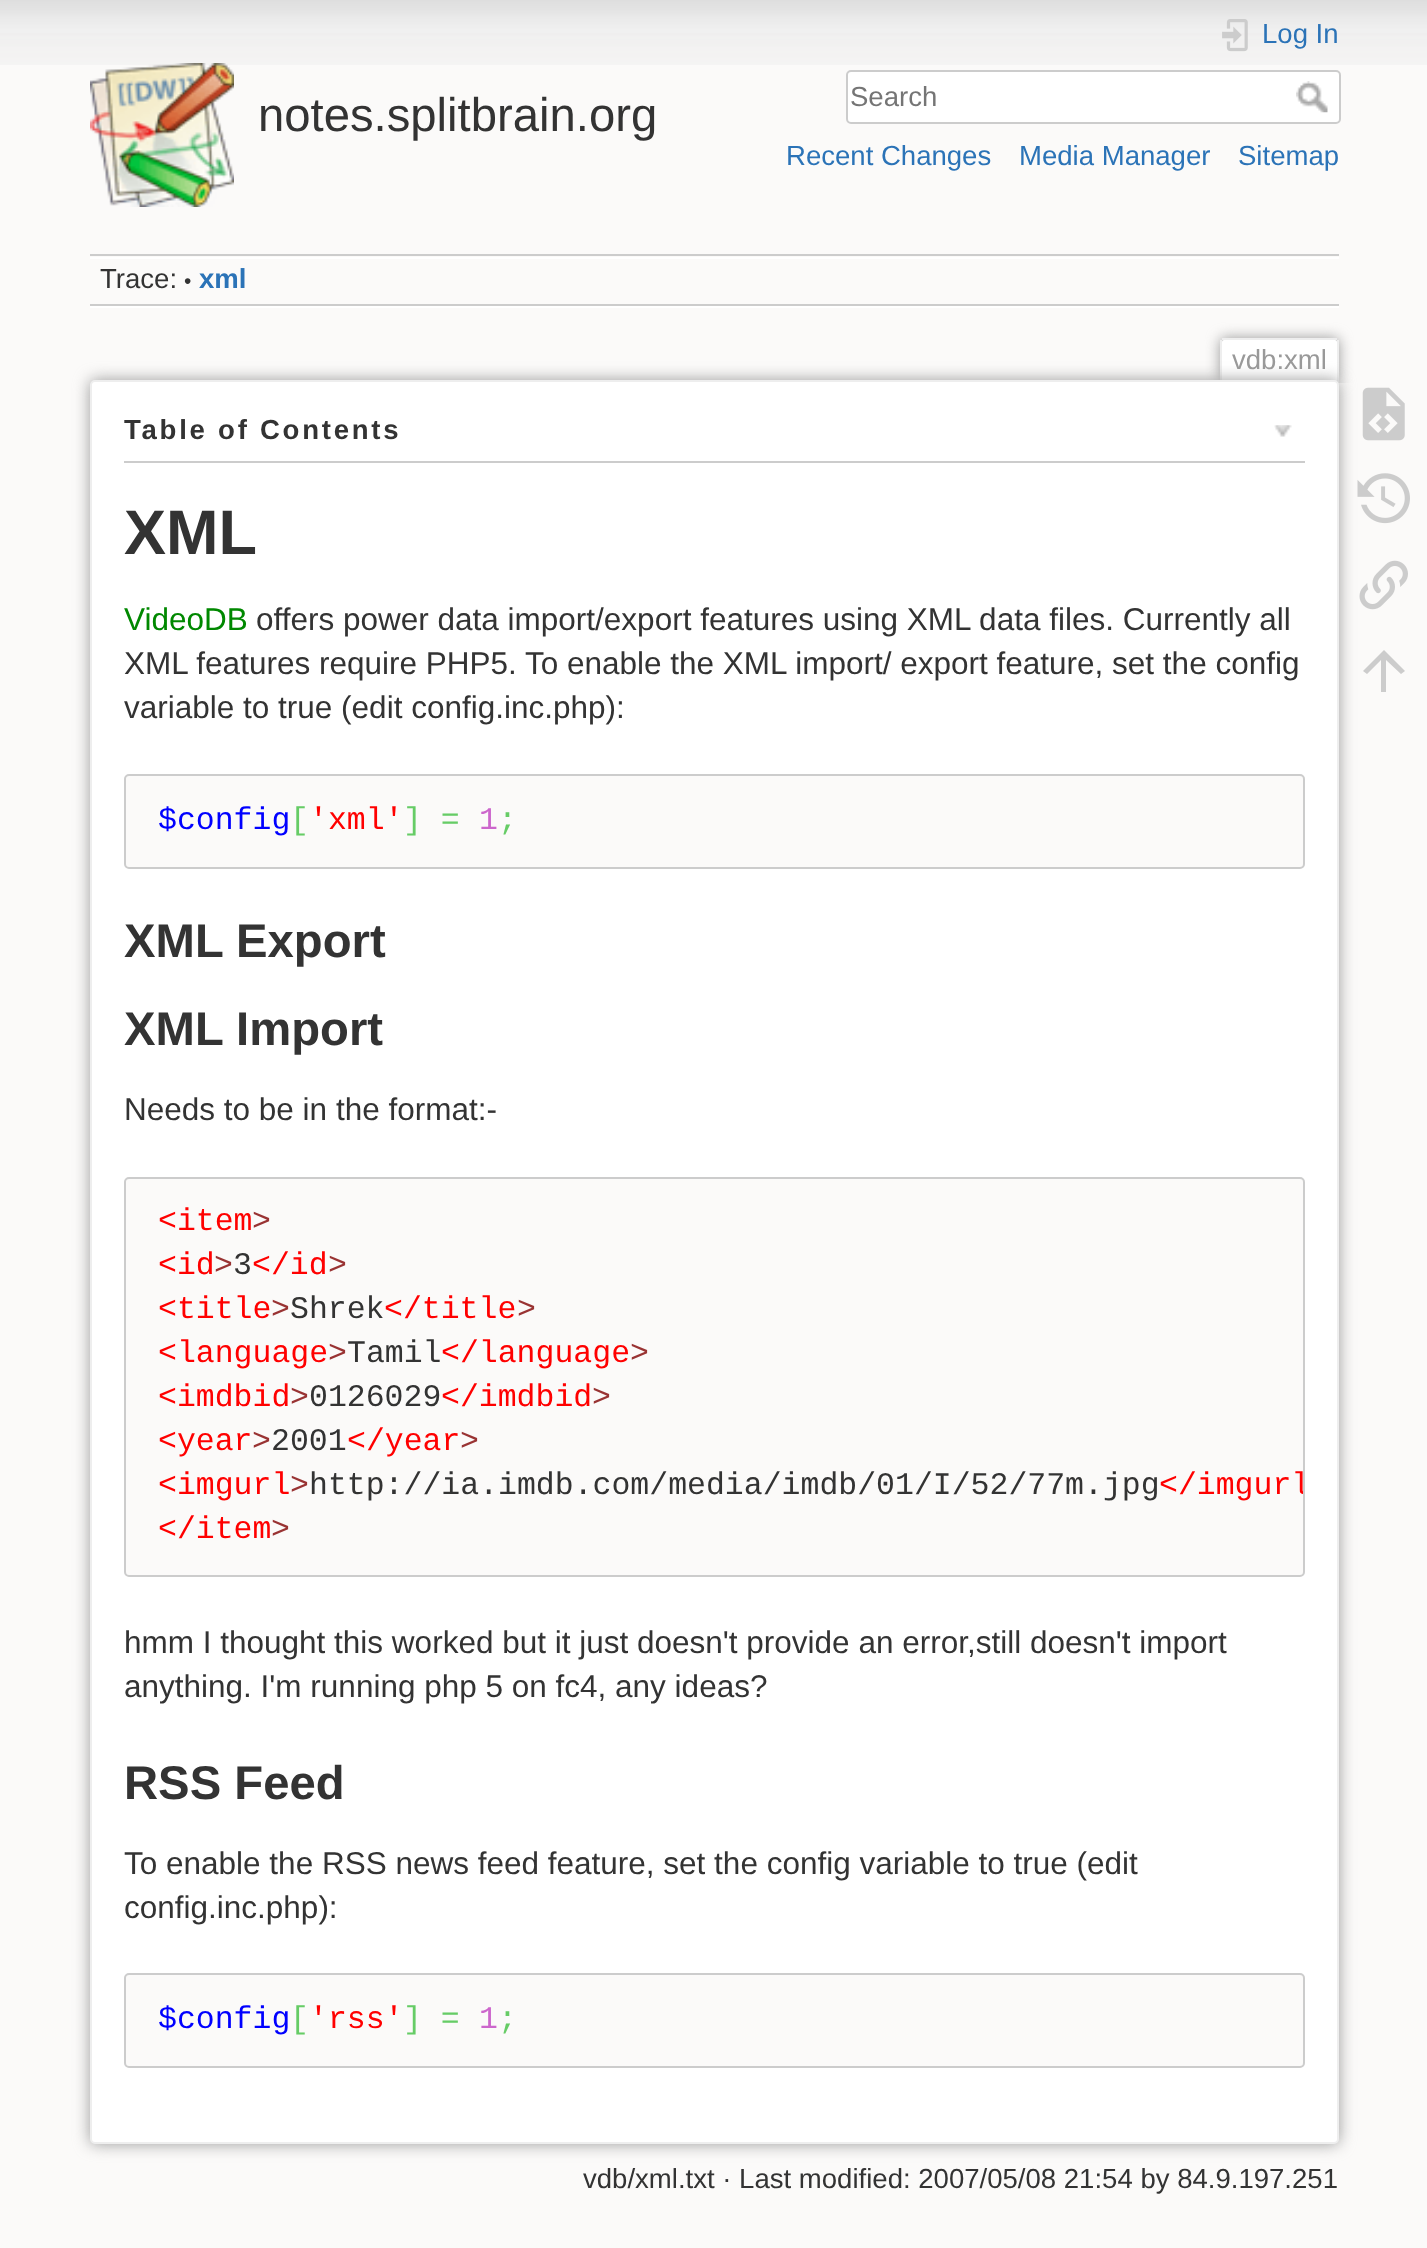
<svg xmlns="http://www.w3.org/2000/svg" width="1427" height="2248">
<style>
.a{font:47.25px Liberation Sans;fill:#333}
.b{font:27.55px Liberation Sans;fill:#2b73b7}
.c{font:27.55px Liberation Sans;fill:#757575}
.d{font:27.55px Liberation Sans;fill:#333}
.e{font:21px Liberation Sans;fill:#333}
.f{font:bold 27.55px Liberation Sans;fill:#2b73b7}
.g{font:27.55px Liberation Sans;fill:#999}
.h{font:bold 27.55px Liberation Sans;letter-spacing:2.75px;fill:#333}
.i{font:bold 63px Liberation Sans;fill:#333}
.j{font:31.5px Liberation Sans;fill:#080}
.k{font:31.5px Liberation Sans;fill:#333}
.l{font:31.5px Liberation Mono;fill:#00f}
.m{font:31.5px Liberation Mono;fill:#6c6}
.n{font:31.5px Liberation Mono;fill:#f00}
.o{font:31.5px Liberation Mono;fill:#c6c}
.p{font:bold 47.25px Liberation Sans;fill:#333}
.q{font:31.5px Liberation Mono;fill:#933}
.r{font:31.5px Liberation Mono;fill:#333}
</style>
<defs>
<clipPath id="clip1"><path d="M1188 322h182v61H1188z"/></clipPath>
<clipPath id="clip2"><rect x="126" y="1179" width="1177" height="396" rx="2"/></clipPath>
</defs>
<rect width="100%" height="100%" fill="#fbfaf9"/>
<image href="1.png" x="0" y="0" width="1427" height="65"/>
<image href="2.png" x="90" y="63" width="144" height="144"/>
<image href="3.png" x="1222" y="19" width="26" height="33"/>
<rect fill="#fff" stroke="#ccc" stroke-width="2" x="847" y="71" width="493" height="52" rx="4"/>
<image href="4.png" x="1296" y="81" width="32" height="32"/>
<path fill="#ccc" d="M90 254h1249v2H90z"/>
<path fill="#fff" d="M90 306h1249v2H90z"/>
<path fill="#fff" d="M90 257h1249v2H90z"/>
<path fill="#ccc" d="M90 304h1249v2H90z"/>
<g clip-path="url(#clip1)">
<rect fill="#999" filter="blur(7px)" x="1220" y="338" width="119" height="45" rx="5"/>
</g>
<path fill="#fff" d="M1224 340h111c1 0 2 1 2 2v41h-115v-41c0-1 1-2 2-2z"/>
<path fill="#eee" d="M1222 338h115v2H1222z"/>
<path fill="#eee" d="M1337 340h2v43H1337z"/>
<path fill="#eee" d="M1220 340h2v43H1220z"/>
<rect fill="#999" filter="blur(8px)" x="90" y="380" width="1249" height="1764" rx="5"/>
<rect fill="#fff" stroke="#eee" stroke-width="2" x="91" y="381" width="1247" height="1762" rx="4"/>
<path fill="#ccc" d="M124 461h1181v2H124z"/>
<image href="5.png" x="1274" y="425" width="18" height="12"/>
<rect fill="#fbfaf9" stroke="#ccc" stroke-width="2" x="125" y="775" width="1179" height="93" rx="4"/>
<rect fill="#fbfaf9" stroke="#ccc" stroke-width="2" x="125" y="1178" width="1179" height="398" rx="4"/>
<rect fill="#fbfaf9" stroke="#ccc" stroke-width="2" x="125" y="1974" width="1179" height="93" rx="4"/>
<image href="6.png" x="1362" y="387" width="43" height="54"/>
<image href="7.png" x="1357" y="473" width="53" height="51"/>
<image href="8.png" x="1359" y="560" width="49" height="50"/>
<path fill="#ccc" d="M1386 692h-5v-32l-14 14l-4-3l21-21l21 21l-4 3l-15-14z"/>
<text class="a" x="258" y="131">notes.splitbrain.org</text>
<text class="b" x="1262" y="43">Log In</text>
<text class="c" x="850" y="106">Search</text>
<text class="b" x="786" y="165">Recent Changes</text>
<text class="b" x="1019" y="165">Media Manager</text>
<text class="b" x="1238" y="165">Sitemap</text>
<text class="d" x="100" y="288">Trace:</text>
<text class="e" x="184" y="288">•</text>
<text class="f" x="199" y="288">xml</text>
<text class="g" x="1232" y="369">vdb:xml</text>
<text class="h" x="124" y="439">Table of Contents</text>
<text class="i" x="124" y="554">XML</text>
<text class="j" x="124" y="630">VideoDB</text>
<text class="k" x="256" y="630">offers power data import/export features using XML data files. Currently all</text>
<text class="k" x="124" y="674">XML features require PHP5. To enable the XML import/ export feature, set the config</text>
<text class="k" x="124" y="718">variable to true (edit config.inc.php):</text>
<text class="l" x="158" y="829">$config</text>
<text class="m" x="290" y="829">[</text>
<text class="n" x="309" y="829">'xml'</text>
<text class="m" x="403" y="829">] =</text>
<text class="o" x="479" y="829">1</text>
<text class="m" x="498" y="829">;</text>
<text class="p" x="124" y="957">XML Export</text>
<text class="p" x="124" y="1045">XML Import</text>
<text class="k" x="124" y="1120">Needs to be in the format:-</text>
<text class="n" x="158" y="1230">&lt;item</text>
<text class="q" x="252" y="1230">&gt;</text>
<text class="n" x="158" y="1274">&lt;id</text>
<text class="q" x="214" y="1274">&gt;</text>
<text class="r" x="233" y="1274">3</text>
<text class="n" x="252" y="1274">&lt;/id</text>
<text class="q" x="328" y="1274">&gt;</text>
<text class="n" x="158" y="1318">&lt;title</text>
<text class="q" x="271" y="1318">&gt;</text>
<text class="r" x="290" y="1318">Shrek</text>
<text class="n" x="384" y="1318">&lt;/title</text>
<text class="q" x="517" y="1318">&gt;</text>
<text class="n" x="158" y="1362">&lt;language</text>
<text class="q" x="328" y="1362">&gt;</text>
<text class="r" x="347" y="1362">Tamil</text>
<text class="n" x="441" y="1362">&lt;/language</text>
<text class="q" x="630" y="1362">&gt;</text>
<text class="n" x="158" y="1406">&lt;imdbid</text>
<text class="q" x="290" y="1406">&gt;</text>
<text class="r" x="309" y="1406">0126029</text>
<text class="n" x="441" y="1406">&lt;/imdbid</text>
<text class="q" x="592" y="1406">&gt;</text>
<text class="n" x="158" y="1450">&lt;year</text>
<text class="q" x="252" y="1450">&gt;</text>
<text class="r" x="271" y="1450">2001</text>
<text class="n" x="347" y="1450">&lt;/year</text>
<text class="q" x="460" y="1450">&gt;</text>
<text class="n" x="158" y="1494">&lt;imgurl</text>
<text class="q" x="290" y="1494">&gt;</text>
<text class="r" x="309" y="1494">http://ia.imdb.com/media/imdb/01/I/52/77m.jpg</text>
<g clip-path="url(#clip2)">
<text class="n" x="1159" y="1494">&lt;/imgurl</text>
</g>
<text class="n" x="158" y="1538">&lt;/item</text>
<text class="q" x="271" y="1538">&gt;</text>
<text class="k" x="124" y="1653">hmm I thought this worked but it just doesn't provide an error,still doesn't import</text>
<text class="k" x="124" y="1697">anything. I'm running php 5 on fc4, any ideas?</text>
<text class="p" x="124" y="1799">RSS Feed</text>
<text class="k" x="124" y="1874">To enable the RSS news feed feature, set the config variable to true (edit</text>
<text class="k" x="124" y="1918">config.inc.php):</text>
<text class="l" x="158" y="2028">$config</text>
<text class="m" x="290" y="2028">[</text>
<text class="n" x="309" y="2028">'rss'</text>
<text class="m" x="403" y="2028">] =</text>
<text class="o" x="479" y="2028">1</text>
<text class="m" x="498" y="2028">;</text>
<text class="d" x="583" y="2188">vdb/xml.txt · Last modified: 2007/05/08 21:54 by 84.9.197.251</text>
</svg>
